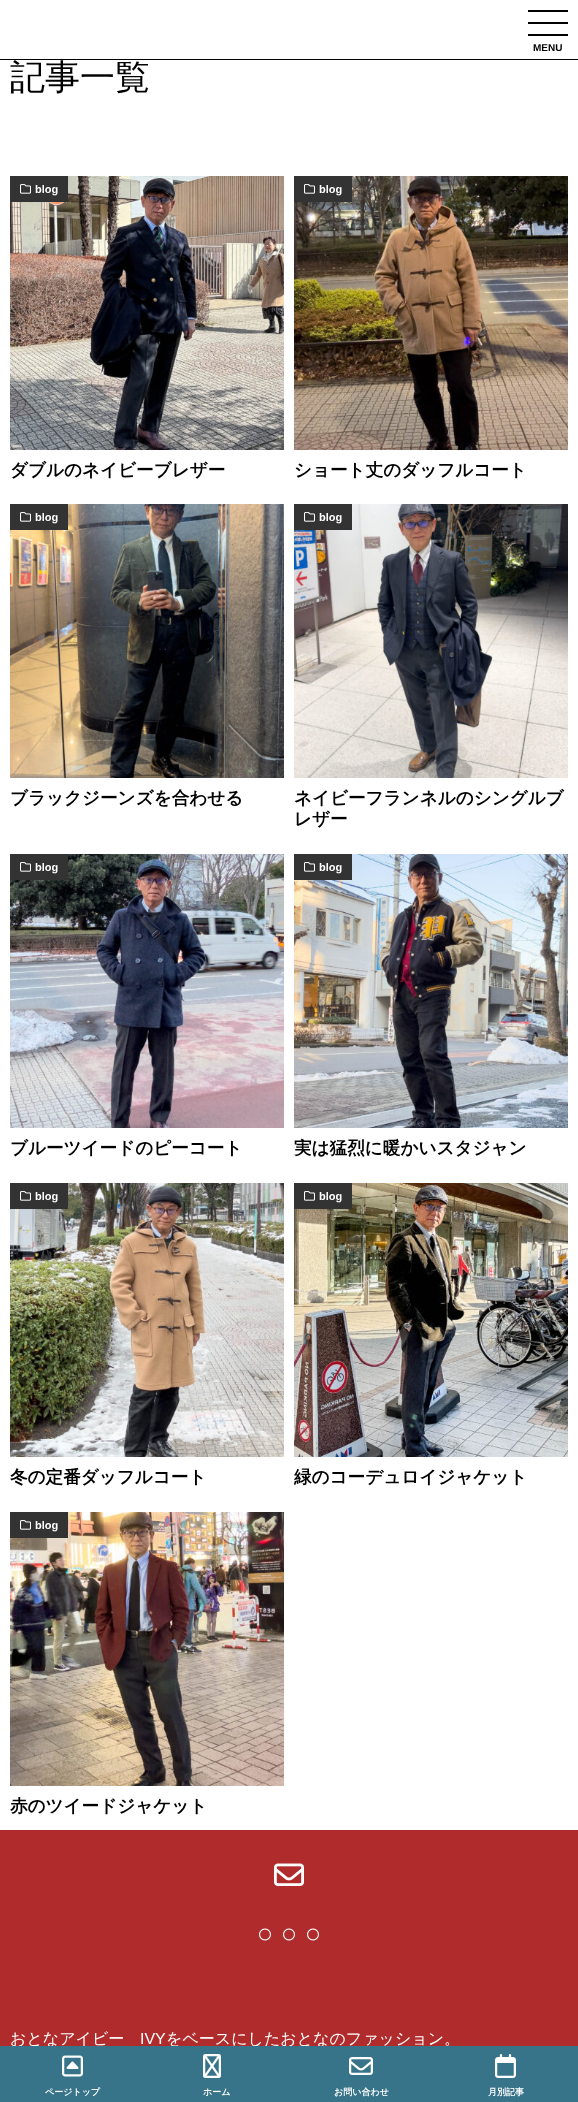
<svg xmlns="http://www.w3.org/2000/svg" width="578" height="2102">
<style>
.a{font:bold 10px Liberation Sans;fill:#000}
.b{font:500 35px WenQuanYi Zen Hei;fill:#000}
.c{font:bold 11px Liberation Sans;fill:#fff}
.d{font:bold 17.6px WenQuanYi Zen Hei;fill:#000}
.e{font:500 16px WenQuanYi Zen Hei;fill:#fff}
.f{font:16px Liberation Sans;fill:#fff}
.g{font:bold 9px WenQuanYi Zen Hei;fill:#fff}
</style>
<rect width="100%" height="100%" fill="#fff"/>
<path fill="#000" d="M0 59h578v1H0z"/>
<path fill="#000" d="M528 10h40v2H528z"/>
<path fill="#000" d="M528 22h40v2H528z"/>
<path fill="#000" d="M528 34h40v2H528z"/>
<image href="1.png" x="10" y="176" width="274" height="274"/>
<path fill="#333" d="M10 176h58v26H10z"/>
<image href="2.png" x="20" y="184" width="11" height="10"/>
<image href="3.png" x="294" y="176" width="274" height="274"/>
<path fill="#333" d="M294 176h58v26H294z"/>
<image href="2.png" x="304" y="184" width="11" height="10"/>
<image href="4.png" x="10" y="504" width="274" height="274"/>
<path fill="#333" d="M10 504h58v26H10z"/>
<image href="2.png" x="20" y="512" width="11" height="10"/>
<image href="5.png" x="294" y="504" width="274" height="274"/>
<path fill="#333" d="M294 504h58v26H294z"/>
<image href="2.png" x="304" y="512" width="11" height="10"/>
<image href="6.png" x="10" y="854" width="274" height="274"/>
<path fill="#333" d="M10 854h58v26H10z"/>
<image href="2.png" x="20" y="862" width="11" height="10"/>
<image href="7.png" x="294" y="854" width="274" height="274"/>
<path fill="#333" d="M294 854h58v26H294z"/>
<image href="2.png" x="304" y="862" width="11" height="10"/>
<image href="8.png" x="10" y="1183" width="274" height="274"/>
<path fill="#333" d="M10 1183h58v26H10z"/>
<image href="2.png" x="20" y="1191" width="11" height="10"/>
<image href="9.png" x="294" y="1183" width="274" height="274"/>
<path fill="#333" d="M294 1183h58v26H294z"/>
<image href="2.png" x="304" y="1191" width="11" height="10"/>
<image href="10.png" x="10" y="1512" width="274" height="274"/>
<path fill="#333" d="M10 1512h58v26H10z"/>
<image href="2.png" x="20" y="1520" width="11" height="10"/>
<path fill="#b02c2c" d="M0 1830h578v216H0z"/>
<image href="11.png" x="274" y="1863" width="30" height="23"/>
<image href="12.png" x="259" y="1928" width="12" height="13"/>
<image href="12.png" x="283" y="1928" width="12" height="13"/>
<image href="12.png" x="307" y="1928" width="12" height="13"/>
<text class="a" x="533" y="51">MENU</text>
<text class="b" x="10" y="89">記事一覧</text>
<text class="c" x="35" y="193">blog</text>
<text class="d" x="10" y="476">ダブルのネイビーブレザー</text>
<text class="c" x="319" y="193">blog</text>
<text class="d" x="294" y="476">ショート丈のダッフルコート</text>
<text class="c" x="35" y="521">blog</text>
<text class="d" x="10" y="804">ブラックジーンズを合わせる</text>
<text class="c" x="319" y="521">blog</text>
<text class="d" x="294" y="804">ネイビーフランネルのシングルブ</text>
<text class="d" x="294" y="825">レザー</text>
<text class="c" x="35" y="871">blog</text>
<text class="d" x="10" y="1154">ブルーツイードのピーコート</text>
<text class="c" x="319" y="871">blog</text>
<text class="d" x="294" y="1154">実は猛烈に暖かいスタジャン</text>
<text class="c" x="35" y="1200">blog</text>
<text class="d" x="10" y="1483">冬の定番ダッフルコート</text>
<text class="c" x="319" y="1200">blog</text>
<text class="d" x="294" y="1483">緑のコーデュロイジャケット</text>
<text class="c" x="35" y="1529">blog</text>
<text class="d" x="10" y="1812">赤のツイードジャケット</text>
<text class="e" x="10" y="2044">おとなアイビー</text>
<text class="f" x="140" y="2044">IVY</text>
<text class="e" x="166" y="2044">をベースにしたおとなのファッション。</text>
<path fill="#377389" d="M0 2046h578v56H0z"/>
<image href="13.png" x="62" y="2055" width="21" height="22"/>
<text class="g" x="45" y="2095">ページトップ</text>
<image href="14.png" x="203" y="2054" width="18" height="24"/>
<text class="g" x="203" y="2095">ホーム</text>
<image href="15.png" x="349" y="2057" width="24" height="18"/>
<text class="g" x="334" y="2095">お問い合わせ</text>
<image href="16.png" x="495" y="2054" width="21" height="24"/>
<text class="g" x="488" y="2095">月別記事</text>
</svg>
